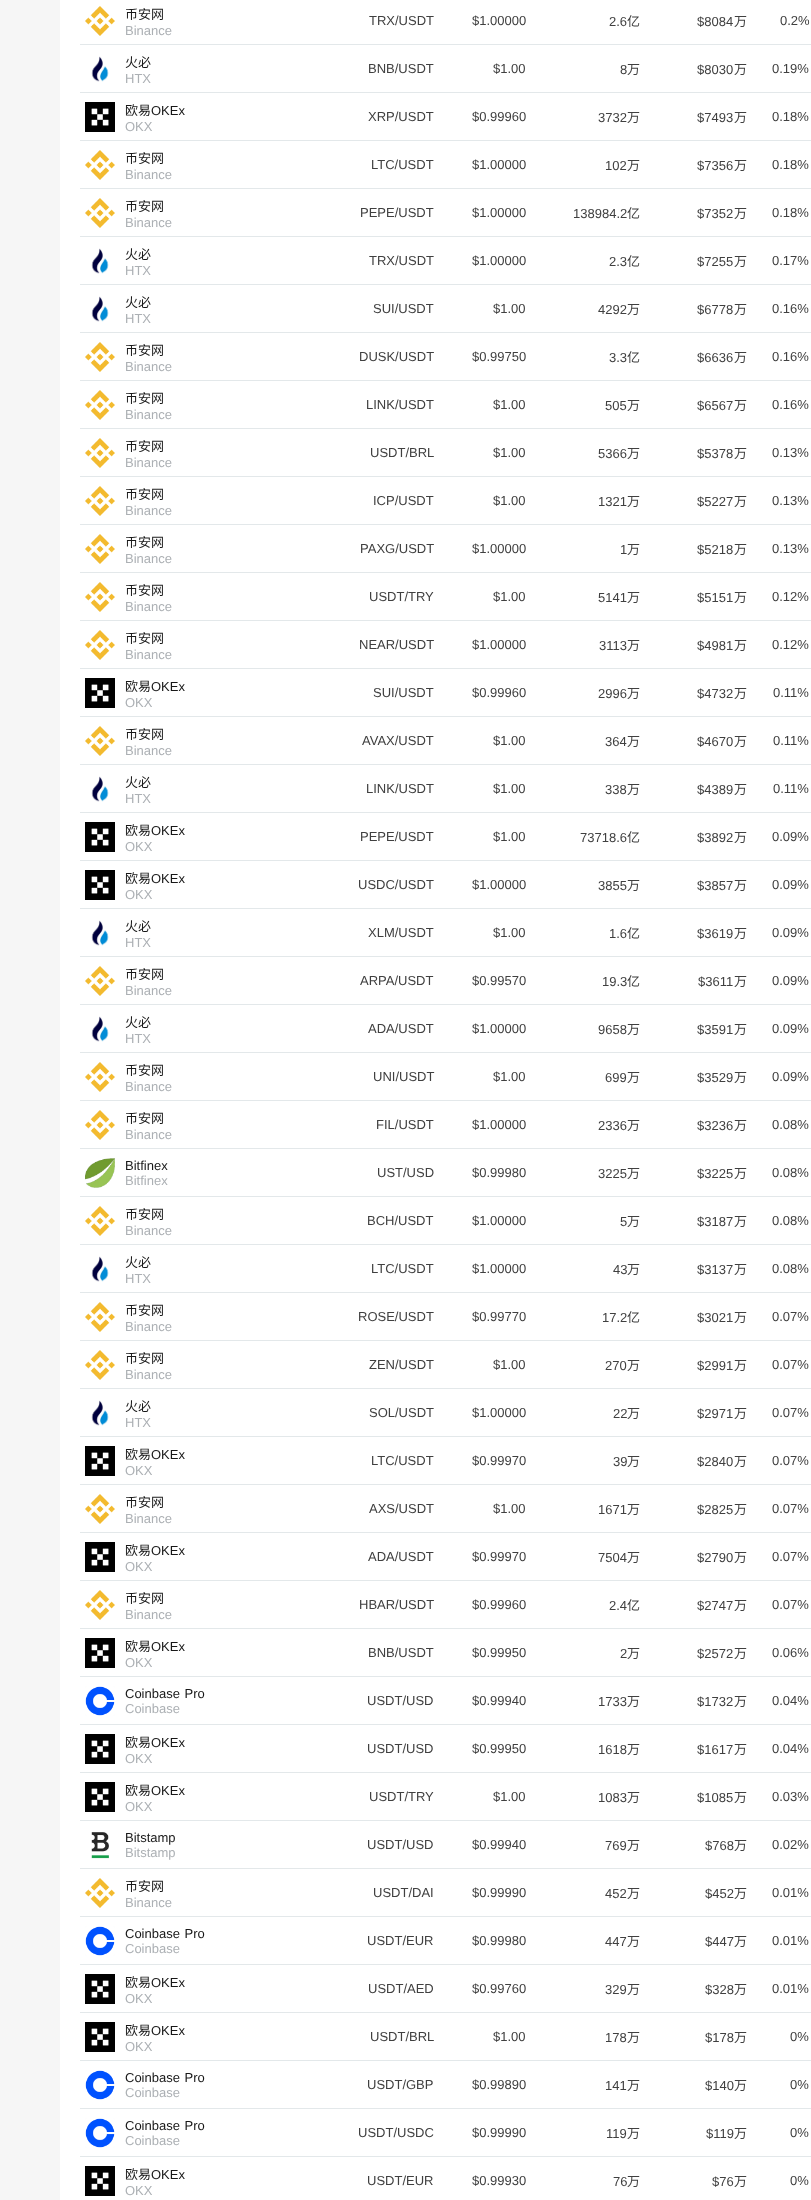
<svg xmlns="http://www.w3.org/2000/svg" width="811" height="2200">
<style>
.a{font:13px Noto Sans CJK SC;fill:#181818}
.b{font:13px Liberation Sans;fill:#acb0b4}
.c{font:13px Liberation Sans;fill:#404040}
.d{font:13px Noto Sans CJK SC;fill:#404040}
.e{font:13px Liberation Sans;fill:#181818}
</style>
<rect width="100%" height="100%" fill="#f6f6f6"/>
<path fill="#fff" d="M60 0h751v2200H60z"/>
<path fill="#e3e8ea" d="M80 44h731v1H80z"/>
<image href="1.png" x="85" y="6" width="30" height="30"/>
<path fill="#e3e8ea" d="M80 92h731v1H80z"/>
<image href="2.png" x="91" y="56" width="18" height="26"/>
<path fill="#e3e8ea" d="M80 140h731v1H80z"/>
<image href="3.png" x="85" y="102" width="30" height="30"/>
<path fill="#e3e8ea" d="M80 188h731v1H80z"/>
<image href="1.png" x="85" y="150" width="30" height="30"/>
<path fill="#e3e8ea" d="M80 236h731v1H80z"/>
<image href="1.png" x="85" y="198" width="30" height="30"/>
<path fill="#e3e8ea" d="M80 284h731v1H80z"/>
<image href="2.png" x="91" y="248" width="18" height="26"/>
<path fill="#e3e8ea" d="M80 332h731v1H80z"/>
<image href="2.png" x="91" y="296" width="18" height="26"/>
<path fill="#e3e8ea" d="M80 380h731v1H80z"/>
<image href="1.png" x="85" y="342" width="30" height="30"/>
<path fill="#e3e8ea" d="M80 428h731v1H80z"/>
<image href="1.png" x="85" y="390" width="30" height="30"/>
<path fill="#e3e8ea" d="M80 476h731v1H80z"/>
<image href="1.png" x="85" y="438" width="30" height="30"/>
<path fill="#e3e8ea" d="M80 524h731v1H80z"/>
<image href="1.png" x="85" y="486" width="30" height="30"/>
<path fill="#e3e8ea" d="M80 572h731v1H80z"/>
<image href="1.png" x="85" y="534" width="30" height="30"/>
<path fill="#e3e8ea" d="M80 620h731v1H80z"/>
<image href="4.png" x="85" y="582" width="30" height="30"/>
<path fill="#e3e8ea" d="M80 668h731v1H80z"/>
<image href="1.png" x="85" y="630" width="30" height="30"/>
<path fill="#e3e8ea" d="M80 716h731v1H80z"/>
<image href="3.png" x="85" y="678" width="30" height="30"/>
<path fill="#e3e8ea" d="M80 764h731v1H80z"/>
<image href="1.png" x="85" y="726" width="30" height="30"/>
<path fill="#e3e8ea" d="M80 812h731v1H80z"/>
<image href="2.png" x="91" y="776" width="18" height="26"/>
<path fill="#e3e8ea" d="M80 860h731v1H80z"/>
<image href="3.png" x="85" y="822" width="30" height="30"/>
<path fill="#e3e8ea" d="M80 908h731v1H80z"/>
<image href="3.png" x="85" y="870" width="30" height="30"/>
<path fill="#e3e8ea" d="M80 956h731v1H80z"/>
<image href="2.png" x="91" y="920" width="18" height="26"/>
<path fill="#e3e8ea" d="M80 1004h731v1H80z"/>
<image href="1.png" x="85" y="966" width="30" height="30"/>
<path fill="#e3e8ea" d="M80 1052h731v1H80z"/>
<image href="2.png" x="91" y="1016" width="18" height="26"/>
<path fill="#e3e8ea" d="M80 1100h731v1H80z"/>
<image href="5.png" x="85" y="1062" width="30" height="30"/>
<path fill="#e3e8ea" d="M80 1148h731v1H80z"/>
<image href="1.png" x="85" y="1110" width="30" height="30"/>
<path fill="#e3e8ea" d="M80 1196h731v1H80z"/>
<image href="6.png" x="85" y="1158" width="30" height="30"/>
<path fill="#e3e8ea" d="M80 1244h731v1H80z"/>
<image href="1.png" x="85" y="1206" width="30" height="30"/>
<path fill="#e3e8ea" d="M80 1292h731v1H80z"/>
<image href="2.png" x="91" y="1256" width="18" height="26"/>
<path fill="#e3e8ea" d="M80 1340h731v1H80z"/>
<image href="7.png" x="85" y="1302" width="30" height="30"/>
<path fill="#e3e8ea" d="M80 1388h731v1H80z"/>
<image href="8.png" x="85" y="1350" width="30" height="30"/>
<path fill="#e3e8ea" d="M80 1436h731v1H80z"/>
<image href="2.png" x="91" y="1400" width="18" height="26"/>
<path fill="#e3e8ea" d="M80 1484h731v1H80z"/>
<image href="3.png" x="85" y="1446" width="30" height="30"/>
<path fill="#e3e8ea" d="M80 1532h731v1H80z"/>
<image href="1.png" x="85" y="1494" width="30" height="30"/>
<path fill="#e3e8ea" d="M80 1580h731v1H80z"/>
<image href="3.png" x="85" y="1542" width="30" height="30"/>
<path fill="#e3e8ea" d="M80 1628h731v1H80z"/>
<image href="1.png" x="85" y="1590" width="30" height="30"/>
<path fill="#e3e8ea" d="M80 1676h731v1H80z"/>
<image href="3.png" x="85" y="1638" width="30" height="30"/>
<path fill="#e3e8ea" d="M80 1724h731v1H80z"/>
<image href="9.png" x="85" y="1686" width="30" height="30"/>
<path fill="#e3e8ea" d="M80 1772h731v1H80z"/>
<image href="3.png" x="85" y="1734" width="30" height="30"/>
<path fill="#e3e8ea" d="M80 1820h731v1H80z"/>
<image href="3.png" x="85" y="1782" width="30" height="30"/>
<path fill="#e3e8ea" d="M80 1868h731v1H80z"/>
<image href="10.png" x="91" y="1832" width="19" height="27"/>
<path fill="#e3e8ea" d="M80 1916h731v1H80z"/>
<image href="1.png" x="85" y="1878" width="30" height="30"/>
<path fill="#e3e8ea" d="M80 1964h731v1H80z"/>
<image href="9.png" x="85" y="1926" width="30" height="30"/>
<path fill="#e3e8ea" d="M80 2012h731v1H80z"/>
<image href="3.png" x="85" y="1974" width="30" height="30"/>
<path fill="#e3e8ea" d="M80 2060h731v1H80z"/>
<image href="3.png" x="85" y="2022" width="30" height="30"/>
<path fill="#e3e8ea" d="M80 2108h731v1H80z"/>
<image href="9.png" x="85" y="2070" width="30" height="30"/>
<path fill="#e3e8ea" d="M80 2156h731v1H80z"/>
<image href="11.png" x="85" y="2118" width="30" height="30"/>
<image href="3.png" x="85" y="2166" width="30" height="30"/>
<text class="a" x="125" y="19">币安网</text>
<text class="b" x="125" y="35">Binance</text>
<text class="c" x="369" y="25">TRX/USDT</text>
<text class="c" x="472" y="25">$1.00000</text>
<text class="c" x="609" y="26">2.6</text>
<text class="d" x="627" y="26">亿</text>
<text class="c" x="697" y="26">$8084</text>
<text class="d" x="734" y="26">万</text>
<text class="c" x="780" y="25">0.2%</text>
<text class="a" x="125" y="67">火必</text>
<text class="b" x="125" y="83">HTX</text>
<text class="c" x="368" y="73">BNB/USDT</text>
<text class="c" x="493" y="73">$1.00</text>
<text class="c" x="620" y="74">8</text>
<text class="d" x="627" y="74">万</text>
<text class="c" x="697" y="74">$8030</text>
<text class="d" x="734" y="74">万</text>
<text class="c" x="772" y="73">0.19%</text>
<text class="a" x="125" y="115">欧易</text>
<text class="e" x="151" y="115">OKEx</text>
<text class="b" x="125" y="131">OKX</text>
<text class="c" x="368" y="121">XRP/USDT</text>
<text class="c" x="472" y="121">$0.99960</text>
<text class="c" x="598" y="122">3732</text>
<text class="d" x="627" y="122">万</text>
<text class="c" x="697" y="122">$7493</text>
<text class="d" x="734" y="122">万</text>
<text class="c" x="772" y="121">0.18%</text>
<text class="a" x="125" y="163">币安网</text>
<text class="b" x="125" y="179">Binance</text>
<text class="c" x="371" y="169">LTC/USDT</text>
<text class="c" x="472" y="169">$1.00000</text>
<text class="c" x="605" y="170">102</text>
<text class="d" x="627" y="170">万</text>
<text class="c" x="697" y="170">$7356</text>
<text class="d" x="734" y="170">万</text>
<text class="c" x="772" y="169">0.18%</text>
<text class="a" x="125" y="211">币安网</text>
<text class="b" x="125" y="227">Binance</text>
<text class="c" x="360" y="217">PEPE/USDT</text>
<text class="c" x="472" y="217">$1.00000</text>
<text class="c" x="573" y="218">138984.2</text>
<text class="d" x="627" y="218">亿</text>
<text class="c" x="697" y="218">$7352</text>
<text class="d" x="734" y="218">万</text>
<text class="c" x="772" y="217">0.18%</text>
<text class="a" x="125" y="259">火必</text>
<text class="b" x="125" y="275">HTX</text>
<text class="c" x="369" y="265">TRX/USDT</text>
<text class="c" x="472" y="265">$1.00000</text>
<text class="c" x="609" y="266">2.3</text>
<text class="d" x="627" y="266">亿</text>
<text class="c" x="697" y="266">$7255</text>
<text class="d" x="734" y="266">万</text>
<text class="c" x="772" y="265">0.17%</text>
<text class="a" x="125" y="307">火必</text>
<text class="b" x="125" y="323">HTX</text>
<text class="c" x="373" y="313">SUI/USDT</text>
<text class="c" x="493" y="313">$1.00</text>
<text class="c" x="598" y="314">4292</text>
<text class="d" x="627" y="314">万</text>
<text class="c" x="697" y="314">$6778</text>
<text class="d" x="734" y="314">万</text>
<text class="c" x="772" y="313">0.16%</text>
<text class="a" x="125" y="355">币安网</text>
<text class="b" x="125" y="371">Binance</text>
<text class="c" x="359" y="361">DUSK/USDT</text>
<text class="c" x="472" y="361">$0.99750</text>
<text class="c" x="609" y="362">3.3</text>
<text class="d" x="627" y="362">亿</text>
<text class="c" x="697" y="362">$6636</text>
<text class="d" x="734" y="362">万</text>
<text class="c" x="772" y="361">0.16%</text>
<text class="a" x="125" y="403">币安网</text>
<text class="b" x="125" y="419">Binance</text>
<text class="c" x="366" y="409">LINK/USDT</text>
<text class="c" x="493" y="409">$1.00</text>
<text class="c" x="605" y="410">505</text>
<text class="d" x="627" y="410">万</text>
<text class="c" x="697" y="410">$6567</text>
<text class="d" x="734" y="410">万</text>
<text class="c" x="772" y="409">0.16%</text>
<text class="a" x="125" y="451">币安网</text>
<text class="b" x="125" y="467">Binance</text>
<text class="c" x="370" y="457">USDT/BRL</text>
<text class="c" x="493" y="457">$1.00</text>
<text class="c" x="598" y="458">5366</text>
<text class="d" x="627" y="458">万</text>
<text class="c" x="697" y="458">$5378</text>
<text class="d" x="734" y="458">万</text>
<text class="c" x="772" y="457">0.13%</text>
<text class="a" x="125" y="499">币安网</text>
<text class="b" x="125" y="515">Binance</text>
<text class="c" x="373" y="505">ICP/USDT</text>
<text class="c" x="493" y="505">$1.00</text>
<text class="c" x="598" y="506">1321</text>
<text class="d" x="627" y="506">万</text>
<text class="c" x="697" y="506">$5227</text>
<text class="d" x="734" y="506">万</text>
<text class="c" x="772" y="505">0.13%</text>
<text class="a" x="125" y="547">币安网</text>
<text class="b" x="125" y="563">Binance</text>
<text class="c" x="360" y="553">PAXG/USDT</text>
<text class="c" x="472" y="553">$1.00000</text>
<text class="c" x="620" y="554">1</text>
<text class="d" x="627" y="554">万</text>
<text class="c" x="697" y="554">$5218</text>
<text class="d" x="734" y="554">万</text>
<text class="c" x="772" y="553">0.13%</text>
<text class="a" x="125" y="595">币安网</text>
<text class="b" x="125" y="611">Binance</text>
<text class="c" x="369" y="601">USDT/TRY</text>
<text class="c" x="493" y="601">$1.00</text>
<text class="c" x="598" y="602">5141</text>
<text class="d" x="627" y="602">万</text>
<text class="c" x="697" y="602">$5151</text>
<text class="d" x="734" y="602">万</text>
<text class="c" x="772" y="601">0.12%</text>
<text class="a" x="125" y="643">币安网</text>
<text class="b" x="125" y="659">Binance</text>
<text class="c" x="359" y="649">NEAR/USDT</text>
<text class="c" x="472" y="649">$1.00000</text>
<text class="c" x="599" y="650">3113</text>
<text class="d" x="627" y="650">万</text>
<text class="c" x="697" y="650">$4981</text>
<text class="d" x="734" y="650">万</text>
<text class="c" x="772" y="649">0.12%</text>
<text class="a" x="125" y="691">欧易</text>
<text class="e" x="151" y="691">OKEx</text>
<text class="b" x="125" y="707">OKX</text>
<text class="c" x="373" y="697">SUI/USDT</text>
<text class="c" x="472" y="697">$0.99960</text>
<text class="c" x="598" y="698">2996</text>
<text class="d" x="627" y="698">万</text>
<text class="c" x="697" y="698">$4732</text>
<text class="d" x="734" y="698">万</text>
<text class="c" x="773" y="697">0.11%</text>
<text class="a" x="125" y="739">币安网</text>
<text class="b" x="125" y="755">Binance</text>
<text class="c" x="362" y="745">AVAX/USDT</text>
<text class="c" x="493" y="745">$1.00</text>
<text class="c" x="605" y="746">364</text>
<text class="d" x="627" y="746">万</text>
<text class="c" x="697" y="746">$4670</text>
<text class="d" x="734" y="746">万</text>
<text class="c" x="773" y="745">0.11%</text>
<text class="a" x="125" y="787">火必</text>
<text class="b" x="125" y="803">HTX</text>
<text class="c" x="366" y="793">LINK/USDT</text>
<text class="c" x="493" y="793">$1.00</text>
<text class="c" x="605" y="794">338</text>
<text class="d" x="627" y="794">万</text>
<text class="c" x="697" y="794">$4389</text>
<text class="d" x="734" y="794">万</text>
<text class="c" x="773" y="793">0.11%</text>
<text class="a" x="125" y="835">欧易</text>
<text class="e" x="151" y="835">OKEx</text>
<text class="b" x="125" y="851">OKX</text>
<text class="c" x="360" y="841">PEPE/USDT</text>
<text class="c" x="493" y="841">$1.00</text>
<text class="c" x="580" y="842">73718.6</text>
<text class="d" x="627" y="842">亿</text>
<text class="c" x="697" y="842">$3892</text>
<text class="d" x="734" y="842">万</text>
<text class="c" x="772" y="841">0.09%</text>
<text class="a" x="125" y="883">欧易</text>
<text class="e" x="151" y="883">OKEx</text>
<text class="b" x="125" y="899">OKX</text>
<text class="c" x="358" y="889">USDC/USDT</text>
<text class="c" x="472" y="889">$1.00000</text>
<text class="c" x="598" y="890">3855</text>
<text class="d" x="627" y="890">万</text>
<text class="c" x="697" y="890">$3857</text>
<text class="d" x="734" y="890">万</text>
<text class="c" x="772" y="889">0.09%</text>
<text class="a" x="125" y="931">火必</text>
<text class="b" x="125" y="947">HTX</text>
<text class="c" x="368" y="937">XLM/USDT</text>
<text class="c" x="493" y="937">$1.00</text>
<text class="c" x="609" y="938">1.6</text>
<text class="d" x="627" y="938">亿</text>
<text class="c" x="697" y="938">$3619</text>
<text class="d" x="734" y="938">万</text>
<text class="c" x="772" y="937">0.09%</text>
<text class="a" x="125" y="979">币安网</text>
<text class="b" x="125" y="995">Binance</text>
<text class="c" x="360" y="985">ARPA/USDT</text>
<text class="c" x="472" y="985">$0.99570</text>
<text class="c" x="602" y="986">19.3</text>
<text class="d" x="627" y="986">亿</text>
<text class="c" x="698" y="986">$3611</text>
<text class="d" x="734" y="986">万</text>
<text class="c" x="772" y="985">0.09%</text>
<text class="a" x="125" y="1027">火必</text>
<text class="b" x="125" y="1043">HTX</text>
<text class="c" x="368" y="1033">ADA/USDT</text>
<text class="c" x="472" y="1033">$1.00000</text>
<text class="c" x="598" y="1034">9658</text>
<text class="d" x="627" y="1034">万</text>
<text class="c" x="697" y="1034">$3591</text>
<text class="d" x="734" y="1034">万</text>
<text class="c" x="772" y="1033">0.09%</text>
<text class="a" x="125" y="1075">币安网</text>
<text class="b" x="125" y="1091">Binance</text>
<text class="c" x="373" y="1081">UNI/USDT</text>
<text class="c" x="493" y="1081">$1.00</text>
<text class="c" x="605" y="1082">699</text>
<text class="d" x="627" y="1082">万</text>
<text class="c" x="697" y="1082">$3529</text>
<text class="d" x="734" y="1082">万</text>
<text class="c" x="772" y="1081">0.09%</text>
<text class="a" x="125" y="1123">币安网</text>
<text class="b" x="125" y="1139">Binance</text>
<text class="c" x="376" y="1129">FIL/USDT</text>
<text class="c" x="472" y="1129">$1.00000</text>
<text class="c" x="598" y="1130">2336</text>
<text class="d" x="627" y="1130">万</text>
<text class="c" x="697" y="1130">$3236</text>
<text class="d" x="734" y="1130">万</text>
<text class="c" x="772" y="1129">0.08%</text>
<text class="e" x="125" y="1170">Bitfinex</text>
<text class="b" x="125" y="1185">Bitfinex</text>
<text class="c" x="377" y="1177">UST/USD</text>
<text class="c" x="472" y="1177">$0.99980</text>
<text class="c" x="598" y="1178">3225</text>
<text class="d" x="627" y="1178">万</text>
<text class="c" x="697" y="1178">$3225</text>
<text class="d" x="734" y="1178">万</text>
<text class="c" x="772" y="1177">0.08%</text>
<text class="a" x="125" y="1219">币安网</text>
<text class="b" x="125" y="1235">Binance</text>
<text class="c" x="367" y="1225">BCH/USDT</text>
<text class="c" x="472" y="1225">$1.00000</text>
<text class="c" x="620" y="1226">5</text>
<text class="d" x="627" y="1226">万</text>
<text class="c" x="697" y="1226">$3187</text>
<text class="d" x="734" y="1226">万</text>
<text class="c" x="772" y="1225">0.08%</text>
<text class="a" x="125" y="1267">火必</text>
<text class="b" x="125" y="1283">HTX</text>
<text class="c" x="371" y="1273">LTC/USDT</text>
<text class="c" x="472" y="1273">$1.00000</text>
<text class="c" x="613" y="1274">43</text>
<text class="d" x="627" y="1274">万</text>
<text class="c" x="697" y="1274">$3137</text>
<text class="d" x="734" y="1274">万</text>
<text class="c" x="772" y="1273">0.08%</text>
<text class="a" x="125" y="1315">币安网</text>
<text class="b" x="125" y="1331">Binance</text>
<text class="c" x="358" y="1321">ROSE/USDT</text>
<text class="c" x="472" y="1321">$0.99770</text>
<text class="c" x="602" y="1322">17.2</text>
<text class="d" x="627" y="1322">亿</text>
<text class="c" x="697" y="1322">$3021</text>
<text class="d" x="734" y="1322">万</text>
<text class="c" x="772" y="1321">0.07%</text>
<text class="a" x="125" y="1363">币安网</text>
<text class="b" x="125" y="1379">Binance</text>
<text class="c" x="369" y="1369">ZEN/USDT</text>
<text class="c" x="493" y="1369">$1.00</text>
<text class="c" x="605" y="1370">270</text>
<text class="d" x="627" y="1370">万</text>
<text class="c" x="697" y="1370">$2991</text>
<text class="d" x="734" y="1370">万</text>
<text class="c" x="772" y="1369">0.07%</text>
<text class="a" x="125" y="1411">火必</text>
<text class="b" x="125" y="1427">HTX</text>
<text class="c" x="369" y="1417">SOL/USDT</text>
<text class="c" x="472" y="1417">$1.00000</text>
<text class="c" x="613" y="1418">22</text>
<text class="d" x="627" y="1418">万</text>
<text class="c" x="697" y="1418">$2971</text>
<text class="d" x="734" y="1418">万</text>
<text class="c" x="772" y="1417">0.07%</text>
<text class="a" x="125" y="1459">欧易</text>
<text class="e" x="151" y="1459">OKEx</text>
<text class="b" x="125" y="1475">OKX</text>
<text class="c" x="371" y="1465">LTC/USDT</text>
<text class="c" x="472" y="1465">$0.99970</text>
<text class="c" x="613" y="1466">39</text>
<text class="d" x="627" y="1466">万</text>
<text class="c" x="697" y="1466">$2840</text>
<text class="d" x="734" y="1466">万</text>
<text class="c" x="772" y="1465">0.07%</text>
<text class="a" x="125" y="1507">币安网</text>
<text class="b" x="125" y="1523">Binance</text>
<text class="c" x="369" y="1513">AXS/USDT</text>
<text class="c" x="493" y="1513">$1.00</text>
<text class="c" x="598" y="1514">1671</text>
<text class="d" x="627" y="1514">万</text>
<text class="c" x="697" y="1514">$2825</text>
<text class="d" x="734" y="1514">万</text>
<text class="c" x="772" y="1513">0.07%</text>
<text class="a" x="125" y="1555">欧易</text>
<text class="e" x="151" y="1555">OKEx</text>
<text class="b" x="125" y="1571">OKX</text>
<text class="c" x="368" y="1561">ADA/USDT</text>
<text class="c" x="472" y="1561">$0.99970</text>
<text class="c" x="598" y="1562">7504</text>
<text class="d" x="627" y="1562">万</text>
<text class="c" x="697" y="1562">$2790</text>
<text class="d" x="734" y="1562">万</text>
<text class="c" x="772" y="1561">0.07%</text>
<text class="a" x="125" y="1603">币安网</text>
<text class="b" x="125" y="1619">Binance</text>
<text class="c" x="359" y="1609">HBAR/USDT</text>
<text class="c" x="472" y="1609">$0.99960</text>
<text class="c" x="609" y="1610">2.4</text>
<text class="d" x="627" y="1610">亿</text>
<text class="c" x="697" y="1610">$2747</text>
<text class="d" x="734" y="1610">万</text>
<text class="c" x="772" y="1609">0.07%</text>
<text class="a" x="125" y="1651">欧易</text>
<text class="e" x="151" y="1651">OKEx</text>
<text class="b" x="125" y="1667">OKX</text>
<text class="c" x="368" y="1657">BNB/USDT</text>
<text class="c" x="472" y="1657">$0.99950</text>
<text class="c" x="620" y="1658">2</text>
<text class="d" x="627" y="1658">万</text>
<text class="c" x="697" y="1658">$2572</text>
<text class="d" x="734" y="1658">万</text>
<text class="c" x="772" y="1657">0.06%</text>
<text class="e" x="125" y="1698" word-spacing="1">Coinbase Pro</text>
<text class="b" x="125" y="1713">Coinbase</text>
<text class="c" x="367" y="1705">USDT/USD</text>
<text class="c" x="472" y="1705">$0.99940</text>
<text class="c" x="598" y="1706">1733</text>
<text class="d" x="627" y="1706">万</text>
<text class="c" x="697" y="1706">$1732</text>
<text class="d" x="734" y="1706">万</text>
<text class="c" x="772" y="1705">0.04%</text>
<text class="a" x="125" y="1747">欧易</text>
<text class="e" x="151" y="1747">OKEx</text>
<text class="b" x="125" y="1763">OKX</text>
<text class="c" x="367" y="1753">USDT/USD</text>
<text class="c" x="472" y="1753">$0.99950</text>
<text class="c" x="598" y="1754">1618</text>
<text class="d" x="627" y="1754">万</text>
<text class="c" x="697" y="1754">$1617</text>
<text class="d" x="734" y="1754">万</text>
<text class="c" x="772" y="1753">0.04%</text>
<text class="a" x="125" y="1795">欧易</text>
<text class="e" x="151" y="1795">OKEx</text>
<text class="b" x="125" y="1811">OKX</text>
<text class="c" x="369" y="1801">USDT/TRY</text>
<text class="c" x="493" y="1801">$1.00</text>
<text class="c" x="598" y="1802">1083</text>
<text class="d" x="627" y="1802">万</text>
<text class="c" x="697" y="1802">$1085</text>
<text class="d" x="734" y="1802">万</text>
<text class="c" x="772" y="1801">0.03%</text>
<text class="e" x="125" y="1842">Bitstamp</text>
<text class="b" x="125" y="1857">Bitstamp</text>
<text class="c" x="367" y="1849">USDT/USD</text>
<text class="c" x="472" y="1849">$0.99940</text>
<text class="c" x="605" y="1850">769</text>
<text class="d" x="627" y="1850">万</text>
<text class="c" x="705" y="1850">$768</text>
<text class="d" x="734" y="1850">万</text>
<text class="c" x="772" y="1849">0.02%</text>
<text class="a" x="125" y="1891">币安网</text>
<text class="b" x="125" y="1907">Binance</text>
<text class="c" x="373" y="1897">USDT/DAI</text>
<text class="c" x="472" y="1897">$0.99990</text>
<text class="c" x="605" y="1898">452</text>
<text class="d" x="627" y="1898">万</text>
<text class="c" x="705" y="1898">$452</text>
<text class="d" x="734" y="1898">万</text>
<text class="c" x="772" y="1897">0.01%</text>
<text class="e" x="125" y="1938" word-spacing="1">Coinbase Pro</text>
<text class="b" x="125" y="1953">Coinbase</text>
<text class="c" x="367" y="1945">USDT/EUR</text>
<text class="c" x="472" y="1945">$0.99980</text>
<text class="c" x="605" y="1946">447</text>
<text class="d" x="627" y="1946">万</text>
<text class="c" x="705" y="1946">$447</text>
<text class="d" x="734" y="1946">万</text>
<text class="c" x="772" y="1945">0.01%</text>
<text class="a" x="125" y="1987">欧易</text>
<text class="e" x="151" y="1987">OKEx</text>
<text class="b" x="125" y="2003">OKX</text>
<text class="c" x="368" y="1993">USDT/AED</text>
<text class="c" x="472" y="1993">$0.99760</text>
<text class="c" x="605" y="1994">329</text>
<text class="d" x="627" y="1994">万</text>
<text class="c" x="705" y="1994">$328</text>
<text class="d" x="734" y="1994">万</text>
<text class="c" x="772" y="1993">0.01%</text>
<text class="a" x="125" y="2035">欧易</text>
<text class="e" x="151" y="2035">OKEx</text>
<text class="b" x="125" y="2051">OKX</text>
<text class="c" x="370" y="2041">USDT/BRL</text>
<text class="c" x="493" y="2041">$1.00</text>
<text class="c" x="605" y="2042">178</text>
<text class="d" x="627" y="2042">万</text>
<text class="c" x="705" y="2042">$178</text>
<text class="d" x="734" y="2042">万</text>
<text class="c" x="790" y="2041">0%</text>
<text class="e" x="125" y="2082" word-spacing="1">Coinbase Pro</text>
<text class="b" x="125" y="2097">Coinbase</text>
<text class="c" x="367" y="2089">USDT/GBP</text>
<text class="c" x="472" y="2089">$0.99890</text>
<text class="c" x="605" y="2090">141</text>
<text class="d" x="627" y="2090">万</text>
<text class="c" x="705" y="2090">$140</text>
<text class="d" x="734" y="2090">万</text>
<text class="c" x="790" y="2089">0%</text>
<text class="e" x="125" y="2130" word-spacing="1">Coinbase Pro</text>
<text class="b" x="125" y="2145">Coinbase</text>
<text class="c" x="358" y="2137">USDT/USDC</text>
<text class="c" x="472" y="2137">$0.99990</text>
<text class="c" x="606" y="2138">119</text>
<text class="d" x="627" y="2138">万</text>
<text class="c" x="706" y="2138">$119</text>
<text class="d" x="734" y="2138">万</text>
<text class="c" x="790" y="2137">0%</text>
<text class="a" x="125" y="2179">欧易</text>
<text class="e" x="151" y="2179">OKEx</text>
<text class="b" x="125" y="2195">OKX</text>
<text class="c" x="367" y="2185">USDT/EUR</text>
<text class="c" x="472" y="2185">$0.99930</text>
<text class="c" x="613" y="2186">76</text>
<text class="d" x="627" y="2186">万</text>
<text class="c" x="712" y="2186">$76</text>
<text class="d" x="734" y="2186">万</text>
<text class="c" x="790" y="2185">0%</text>
</svg>
